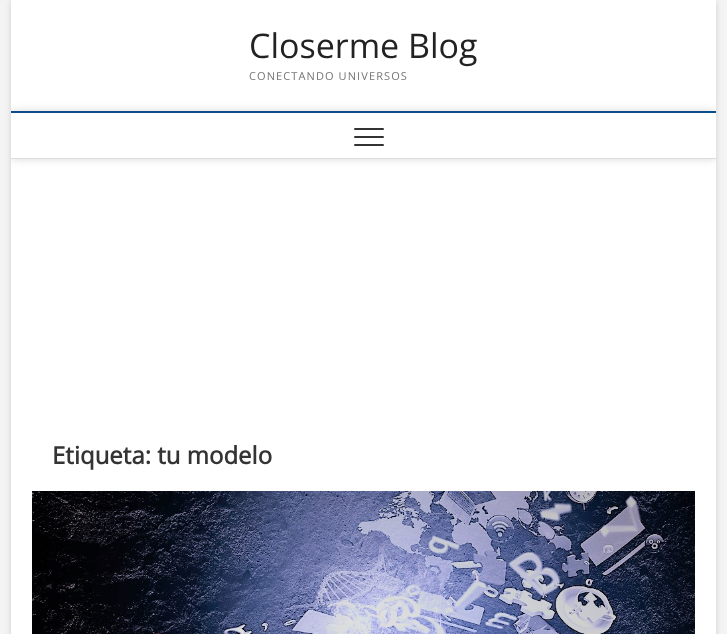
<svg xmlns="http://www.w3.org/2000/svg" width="727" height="634">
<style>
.a{font:34px Open Sans;fill:#222}
.b{font:11px Open Sans;letter-spacing:1.1px;fill:#747474}
.c{font:bold 24px Open Sans;fill:#343434}
</style>
<defs>
<clipPath id="clip1"><path d="M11 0h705v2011H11z"/></clipPath>
<clipPath id="clip2"><path d="M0 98h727v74h-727zm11 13h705v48h-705z" clip-rule="evenodd"/></clipPath>
</defs>
<rect width="100%" height="100%" fill="#f4f4f4"/>
<path fill="#00000026" filter="blur(3px)" d="M11 1h705v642H11z"/>
<path fill="#fff" d="M11 0h705v634H11z"/>
<g clip-path="url(#clip1)">
<g clip-path="url(#clip2)">
<path fill="#00000026" filter="blur(4px)" d="M11 111h705v48H11z"/>
</g>
</g>
<path fill="#0c4c8a" d="M11 111h705v2H11z"/>
<path fill="#ddd" d="M11 158h705v1H11z"/>
<rect fill="#333" x="354" y="136" width="30" height="2" rx="1"/>
<rect fill="#333" x="354" y="128" width="30" height="2" rx="1"/>
<rect fill="#333" x="354" y="144" width="30" height="2" rx="1"/>
<image href="1.png" x="32" y="491" width="663" height="143"/>
<text class="a" x="249" y="58">Closerme Blog</text>
<text class="b" x="249" y="80">CONECTANDO UNIVERSOS</text>
<text class="c" x="52" y="464">Etiqueta: tu modelo</text>
</svg>
